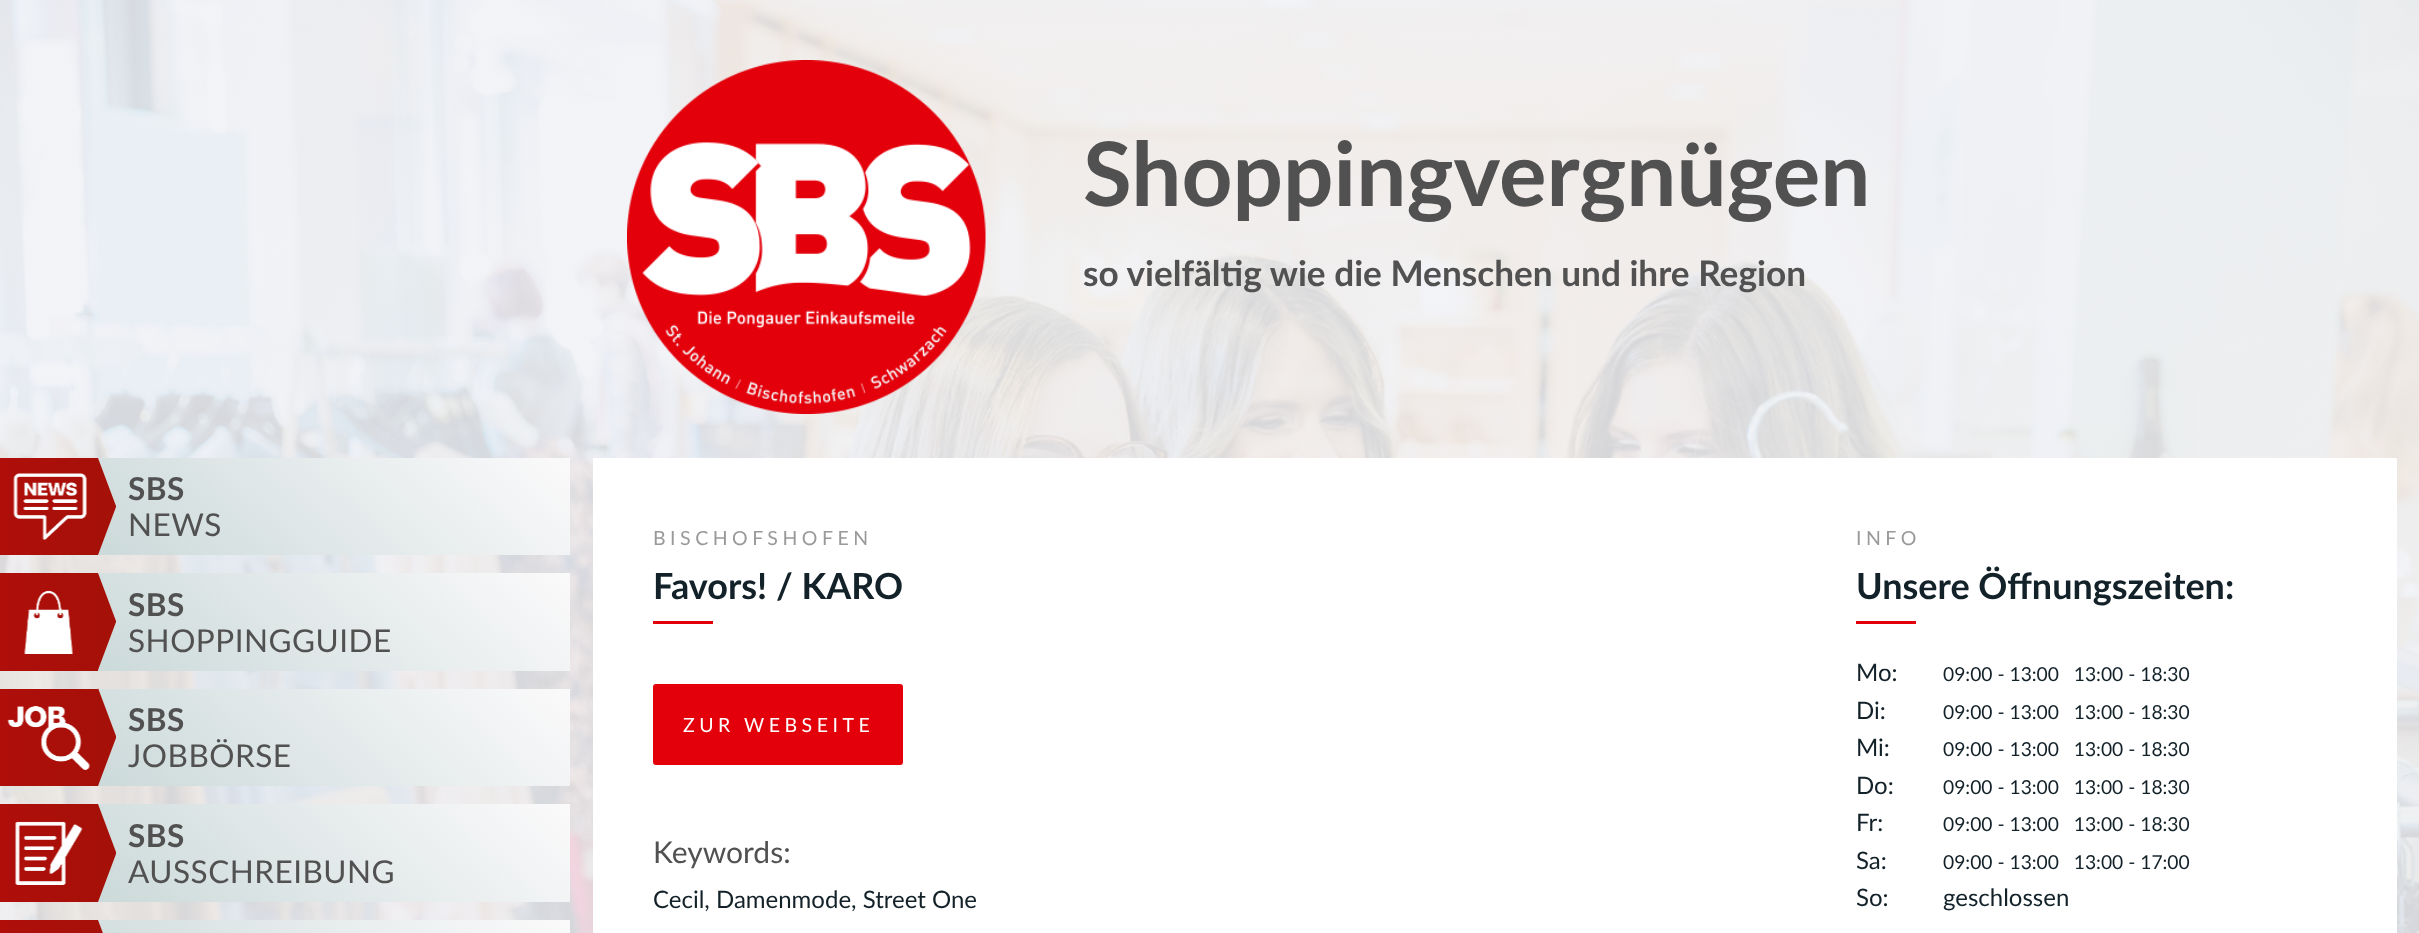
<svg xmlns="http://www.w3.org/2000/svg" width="2419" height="933">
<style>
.a{font:bold 89px Lato;fill:#525151}
.b{font:bold 35.2px Lato;fill:#525151}
.c{font:bold 31.5px Lato;letter-spacing:0.5px;fill:#525151}
.d{font:31.5px Lato;letter-spacing:0.5px;fill:#525151}
.e{font:19.5px Lato;letter-spacing:4.5px;fill:#999}
.f{font:bold 36px Lato;fill:#132129}
.g{font:19.5px Lato;letter-spacing:4.5px;fill:#fff}
.h{font:30px Lato;fill:#525151}
.i{font:24px Lato;fill:#132129}
.j{font:19.25px Lato;fill:#132129}
</style>
<defs>
<linearGradient id="g1" gradientUnits="userSpaceOnUse" x1="-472" y1="506" x2="98" y2="506"><stop offset="0" stop-color="#e30613"/><stop offset="1" stop-color="#a51008"/></linearGradient>
<linearGradient id="g2" gradientUnits="userSpaceOnUse" x1="133" y1="675" x2="437" y2="338"><stop offset="0" stop-color="#c4d4d4"/><stop offset="1" stop-color="#fbfafb"/></linearGradient>
<linearGradient id="g3" gradientUnits="userSpaceOnUse" x1="-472" y1="622" x2="98" y2="622"><stop offset="0" stop-color="#e30613"/><stop offset="1" stop-color="#a51008"/></linearGradient>
<linearGradient id="g4" gradientUnits="userSpaceOnUse" x1="133" y1="790" x2="437" y2="453"><stop offset="0" stop-color="#c4d4d4"/><stop offset="1" stop-color="#fbfafb"/></linearGradient>
<linearGradient id="g5" gradientUnits="userSpaceOnUse" x1="-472" y1="737" x2="98" y2="737"><stop offset="0" stop-color="#e30613"/><stop offset="1" stop-color="#a51008"/></linearGradient>
<linearGradient id="g6" gradientUnits="userSpaceOnUse" x1="133" y1="906" x2="437" y2="569"><stop offset="0" stop-color="#c4d4d4"/><stop offset="1" stop-color="#fbfafb"/></linearGradient>
<linearGradient id="g7" gradientUnits="userSpaceOnUse" x1="-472" y1="853" x2="98" y2="853"><stop offset="0" stop-color="#e30613"/><stop offset="1" stop-color="#a51008"/></linearGradient>
<linearGradient id="g8" gradientUnits="userSpaceOnUse" x1="133" y1="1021" x2="437" y2="684"><stop offset="0" stop-color="#c4d4d4"/><stop offset="1" stop-color="#fbfafb"/></linearGradient>
<linearGradient id="g9" gradientUnits="userSpaceOnUse" x1="-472" y1="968" x2="98" y2="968"><stop offset="0" stop-color="#e30613"/><stop offset="1" stop-color="#a51008"/></linearGradient>
<linearGradient id="g10" gradientUnits="userSpaceOnUse" x1="133" y1="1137" x2="437" y2="800"><stop offset="0" stop-color="#c4d4d4"/><stop offset="1" stop-color="#fbfafb"/></linearGradient>
</defs>
<rect width="100%" height="100%" fill="#fff"/>
<image href="1.png" x="0" y="0" width="2419" height="933"/>
<image href="2.png" x="627" y="60" width="359" height="354"/>
<path fill="url(#g1)" d="M0 458h98v97H0z"/>
<image href="3.png" x="13" y="473" width="74" height="67"/>
<path fill="url(#g2)" d="M98 458h472v97H98z"/>
<path fill="#a51008" d="M98 555v-97l18 48v1z"/>
<path fill="url(#g3)" d="M0 573h98v98H0z"/>
<image href="4.png" x="24" y="590" width="49" height="64"/>
<path fill="url(#g4)" d="M98 573h472v98H98z"/>
<path fill="#a51008" d="M98 670v-97l18 48v1z"/>
<path fill="url(#g5)" d="M0 689h98v97H0z"/>
<image href="5.png" x="7" y="706" width="83" height="64"/>
<path fill="url(#g6)" d="M98 689h472v97H98z"/>
<path fill="#a51008" d="M98 786v-98l18 48v2z"/>
<path fill="url(#g7)" d="M0 804h98v98H0z"/>
<image href="6.png" x="15" y="821" width="68" height="64"/>
<path fill="url(#g8)" d="M98 804h472v98H98z"/>
<path fill="#a51008" d="M98 902v-98l18 48v2z"/>
<path fill="url(#g9)" d="M0 920h98v13H0z"/>
<path fill="url(#g10)" d="M98 920h472v13H98z"/>
<path fill="#a51008" d="M98 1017v-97l18 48v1z"/>
<path fill="#fff" d="M593 458h1804v475H593z"/>
<path fill="#e3000b" d="M653 621h60v3H653z"/>
<rect fill="#e3000b" x="653" y="684" width="250" height="81" rx="3"/>
<path fill="#e3000b" d="M1856 621h60v3H1856z"/>
<text class="a" x="1083" y="206">Shoppingvergnügen</text>
<text class="b" x="1083" y="286">so vielfältig wie die Menschen und ihre Region</text>
<text class="c" x="128" y="500">SBS</text>
<text class="d" x="128" y="536">NEWS</text>
<text class="c" x="128" y="616">SBS</text>
<text class="d" x="128" y="652">SHOPPINGGUIDE</text>
<text class="c" x="128" y="731">SBS</text>
<text class="d" x="128" y="767">JOBBÖRSE</text>
<text class="c" x="128" y="847">SBS</text>
<text class="d" x="128" y="883">AUSSCHREIBUNG</text>
<text class="e" x="653" y="545">BISCHOFSHOFEN</text>
<text class="f" x="653" y="599">Favors! / KARO</text>
<text class="g" x="683" y="732">ZUR WEBSEITE</text>
<text class="h" x="653" y="863">Keywords:</text>
<text class="i" x="653" y="908">Cecil, Damenmode, Street One</text>
<text class="e" x="1856" y="545">INFO</text>
<text class="f" x="1856" y="599">Unsere Öffnungszeiten:</text>
<text class="i" x="1856" y="681">Mo:</text>
<text class="j" xml:space="preserve" x="1943" y="681">09:00 - 13:00   13:00 - 18:30</text>
<text class="i" x="1856" y="719">Di:</text>
<text class="j" xml:space="preserve" x="1943" y="719">09:00 - 13:00   13:00 - 18:30</text>
<text class="i" x="1856" y="756">Mi:</text>
<text class="j" xml:space="preserve" x="1943" y="756">09:00 - 13:00   13:00 - 18:30</text>
<text class="i" x="1856" y="794">Do:</text>
<text class="j" xml:space="preserve" x="1943" y="794">09:00 - 13:00   13:00 - 18:30</text>
<text class="i" x="1856" y="831">Fr:</text>
<text class="j" xml:space="preserve" x="1943" y="831">09:00 - 13:00   13:00 - 18:30</text>
<text class="i" x="1856" y="869">Sa:</text>
<text class="j" xml:space="preserve" x="1943" y="869">09:00 - 13:00   13:00 - 17:00</text>
<text class="i" x="1856" y="906">So:</text>
<text class="i" x="1943" y="906">geschlossen</text>
</svg>
